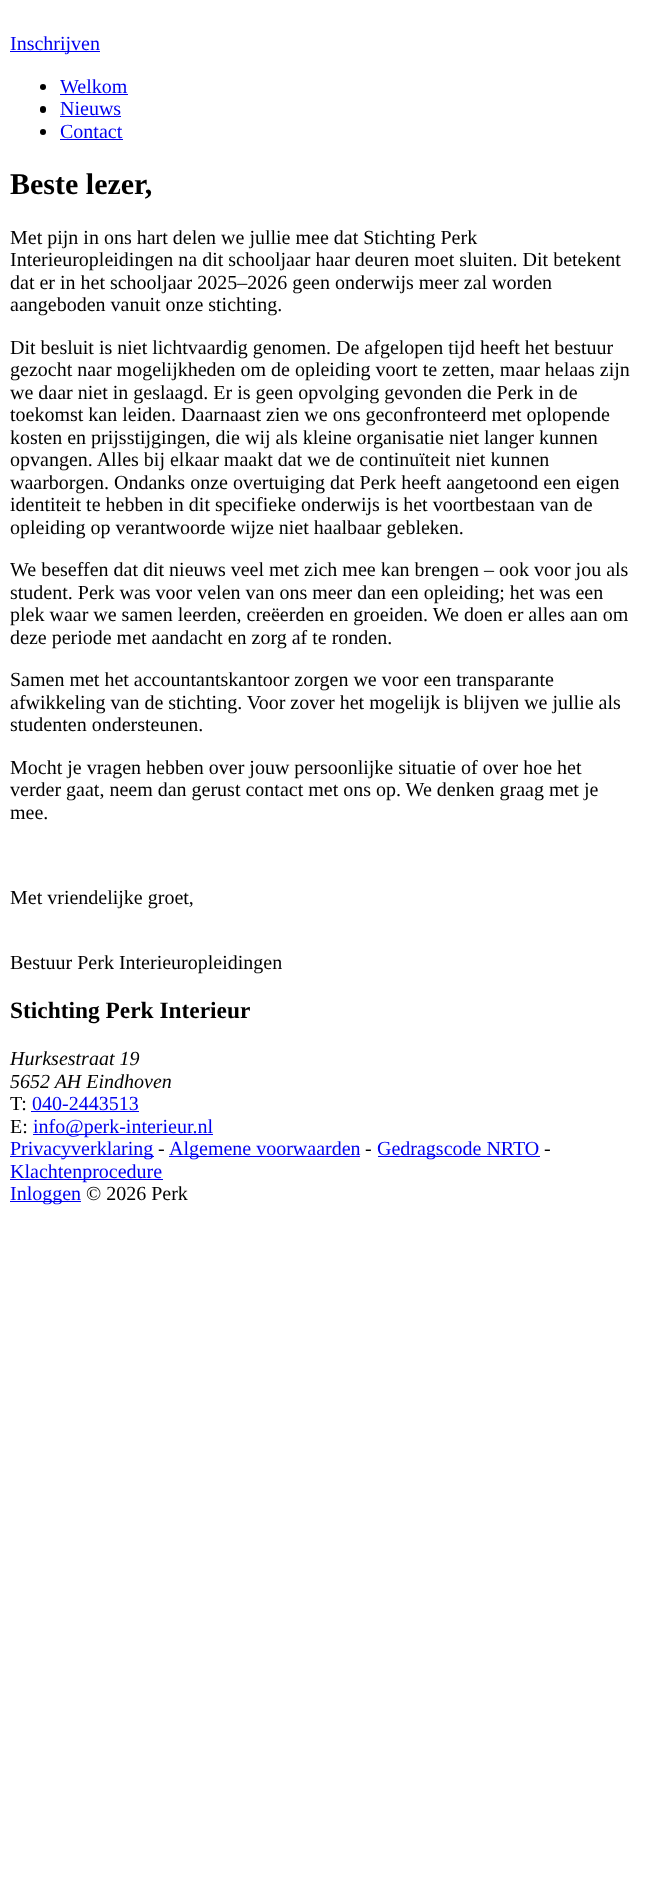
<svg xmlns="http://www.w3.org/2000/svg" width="646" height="1902">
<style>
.a{font:20px Liberation Serif;fill:#00e}
.b{font:bold 30px Liberation Serif;fill:#000}
.c{font:20px Liberation Serif;fill:#000}
.d{font:bold 23.4px Liberation Serif;fill:#000}
.e{font:italic 20px Liberation Serif;fill:#000}
</style>
<rect width="100%" height="100%" fill="#fff"/>
<path fill="#00e" d="M10 51h90v1H10z"/>
<circle fill="#000" cx="43" cy="87" r="3"/>
<path fill="#00e" d="M60 94h68v1H60z"/>
<rect fill="#000" x="40" y="106" width="6" height="7" rx="3"/>
<path fill="#00e" d="M60 116h61v1H60z"/>
<circle fill="#000" cx="43" cy="132" r="3"/>
<path fill="#00e" d="M60 139h63v1H60z"/>
<path fill="#00e" d="M31 1111h108v1H31z"/>
<path fill="#00e" d="M33 1134h180v1H33z"/>
<path fill="#00e" d="M10 1156h144v1H10z"/>
<path fill="#00e" d="M169 1156h191v1H169z"/>
<path fill="#00e" d="M378 1156h162v1H378z"/>
<path fill="#00e" d="M10 1179h153v1H10z"/>
<path fill="#00e" d="M10 1201h71v1H10z"/>
<text class="a" x="10" y="50">Inschrijven</text>
<text class="a" x="60" y="93">Welkom</text>
<text class="a" x="60" y="115">Nieuws</text>
<text class="a" x="60" y="138">Contact</text>
<text class="b" x="10" y="194">Beste lezer,</text>
<text class="c" x="10" y="244">Met pijn in ons hart delen we jullie mee dat Stichting Perk</text>
<text class="c" x="10" y="266">Interieuropleidingen na dit schooljaar haar deuren moet sluiten. Dit betekent</text>
<text class="c" x="10" y="289">dat er in het schooljaar 2025–2026 geen onderwijs meer zal worden</text>
<text class="c" x="10" y="311">aangeboden vanuit onze stichting.</text>
<text class="c" x="10" y="354">Dit besluit is niet lichtvaardig genomen. De afgelopen tijd heeft het bestuur</text>
<text class="c" x="10" y="376">gezocht naar mogelijkheden om de opleiding voort te zetten, maar helaas zijn</text>
<text class="c" x="10" y="399">we daar niet in geslaagd. Er is geen opvolging gevonden die Perk in de</text>
<text class="c" x="10" y="421">toekomst kan leiden. Daarnaast zien we ons geconfronteerd met oplopende</text>
<text class="c" x="10" y="444">kosten en prijsstijgingen, die wij als kleine organisatie niet langer kunnen</text>
<text class="c" x="10" y="466">opvangen. Alles bij elkaar maakt dat we de continuïteit niet kunnen</text>
<text class="c" x="10" y="489">waarborgen. Ondanks onze overtuiging dat Perk heeft aangetoond een eigen</text>
<text class="c" x="10" y="511">identiteit te hebben in dit specifieke onderwijs is het voortbestaan van de</text>
<text class="c" x="10" y="534">opleiding op verantwoorde wijze niet haalbaar gebleken.</text>
<text class="c" x="10" y="576">We beseffen dat dit nieuws veel met zich mee kan brengen – ook voor jou als</text>
<text class="c" x="10" y="599">student. Perk was voor velen van ons meer dan een opleiding; het was een</text>
<text class="c" x="10" y="621">plek waar we samen leerden, creëerden en groeiden. We doen er alles aan om</text>
<text class="c" x="10" y="644">deze periode met aandacht en zorg af te ronden.</text>
<text class="c" x="10" y="686">Samen met het accountantskantoor zorgen we voor een transparante</text>
<text class="c" x="10" y="709">afwikkeling van de stichting. Voor zover het mogelijk is blijven we jullie als</text>
<text class="c" x="10" y="731">studenten ondersteunen.</text>
<text class="c" x="10" y="774">Mocht je vragen hebben over jouw persoonlijke situatie of over hoe het</text>
<text class="c" x="10" y="796">verder gaat, neem dan gerust contact met ons op. We denken graag met je</text>
<text class="c" x="10" y="819">mee.</text>
<text class="c" x="10" y="904">Met vriendelijke groet,</text>
<text class="c" x="10" y="969">Bestuur Perk Interieuropleidingen</text>
<text class="d" x="10" y="1018">Stichting Perk Interieur</text>
<text class="e" x="10" y="1065">Hurksestraat 19</text>
<text class="e" x="10" y="1088">5652 AH Eindhoven</text>
<text class="c" x="10" y="1110">T:</text>
<text class="a" x="32" y="1110">040-2443513</text>
<text class="c" x="10" y="1133">E:</text>
<text class="a" x="33" y="1133">info@perk-interieur.nl</text>
<text class="a" x="10" y="1155">Privacyverklaring</text>
<text class="c" x="158" y="1155">-</text>
<text class="a" x="169" y="1155">Algemene voorwaarden</text>
<text class="c" x="365" y="1155">-</text>
<text class="a" x="377" y="1155">Gedragscode NRTO</text>
<text class="c" x="544" y="1155">-</text>
<text class="a" x="10" y="1178">Klachtenprocedure</text>
<text class="a" x="10" y="1200">Inloggen</text>
<text class="c" x="86" y="1200">© 2026 Perk</text>
</svg>
